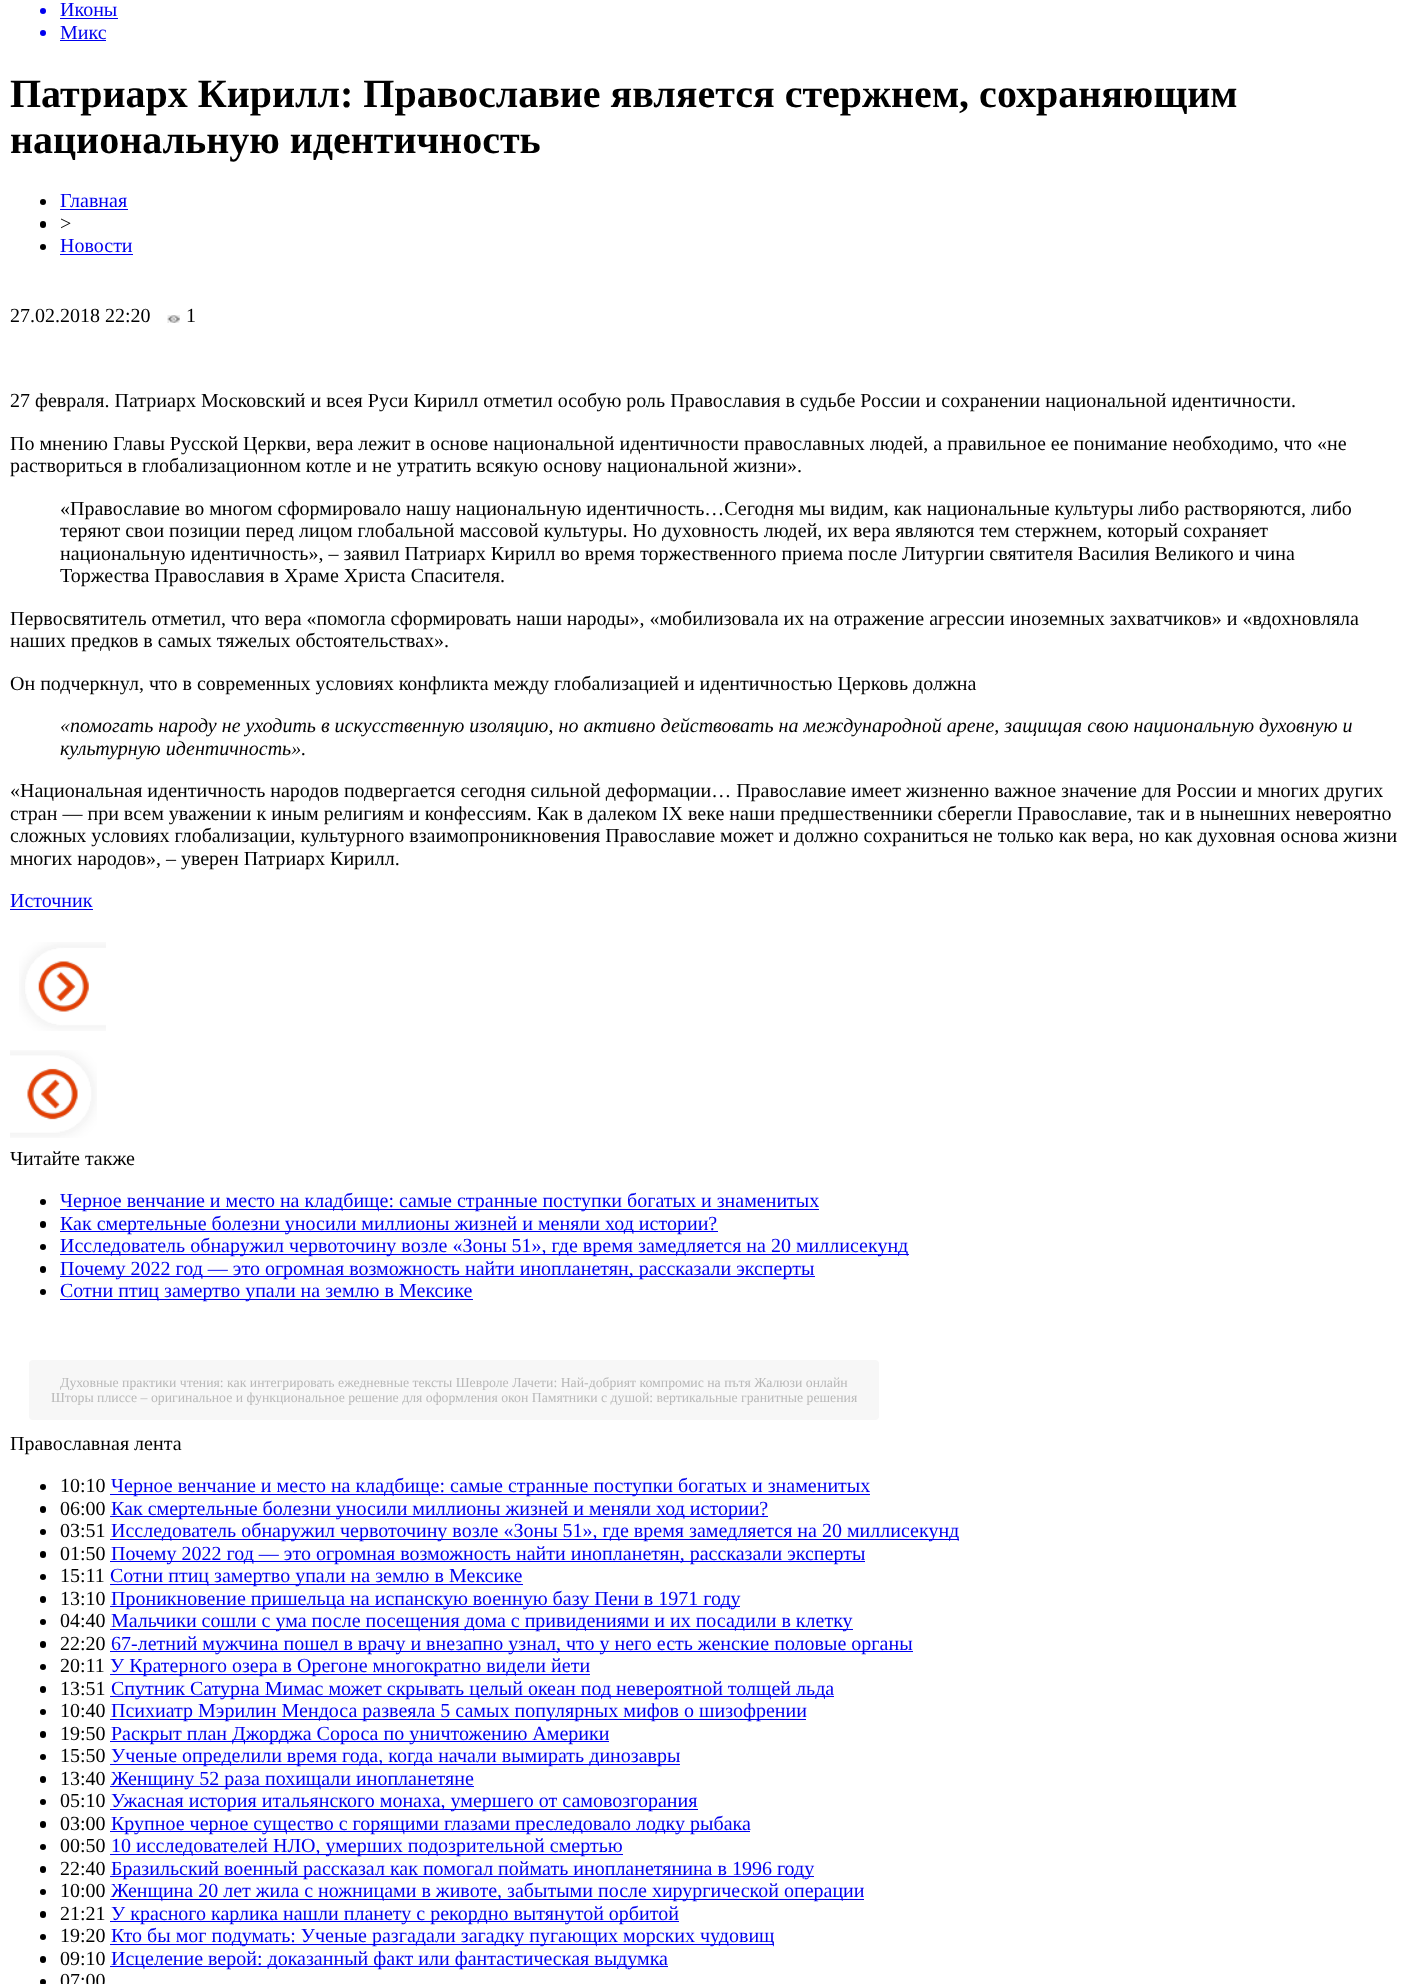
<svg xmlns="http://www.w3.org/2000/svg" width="1414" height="1984">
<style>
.a{font:20px Liberation Serif;fill:#00e}
.b{font:bold 40px Liberation Serif;fill:#000}
.c{font:20px Liberation Serif;fill:#000}
.d{font:italic 20px Liberation Serif;fill:#000}
.e{font:13.75px Liberation Serif;fill:#b8b8b8}
</style>
<rect width="100%" height="100%" fill="#fff"/>
<circle fill="#00e" cx="43" cy="11" r="3"/>
<path fill="#00e" d="M60 18h58v1H60z"/>
<circle fill="#00e" cx="43" cy="33" r="3"/>
<path fill="#00e" d="M60 40h46v1H60z"/>
<circle fill="#000" cx="43" cy="202" r="3"/>
<path fill="#00e" d="M60 209h68v1H60z"/>
<rect fill="#000" x="40" y="221" width="6" height="7" rx="3"/>
<circle fill="#000" cx="43" cy="247" r="3"/>
<path fill="#00e" d="M60 254h73v1H60z"/>
<image href="1.png" x="167" y="315" width="13" height="8"/>
<path fill="#00e" d="M10 909h83v1H10z"/>
<image href="2.png" x="19" y="942" width="87" height="89"/>
<image href="3.png" x="10" y="1050" width="87" height="88"/>
<circle fill="#000" cx="43" cy="1202" r="3"/>
<path fill="#00e" d="M60 1209h759v1H60z"/>
<rect fill="#000" x="40" y="1221" width="6" height="7" rx="3"/>
<path fill="#00e" d="M60 1231h658v1H60z"/>
<circle fill="#000" cx="43" cy="1247" r="3"/>
<path fill="#00e" d="M60 1254h849v1H60z"/>
<rect fill="#000" x="40" y="1266" width="6" height="7" rx="3"/>
<path fill="#00e" d="M60 1276h755v1H60z"/>
<circle fill="#000" cx="43" cy="1292" r="3"/>
<path fill="#00e" d="M60 1299h413v1H60z"/>
<rect fill="#f7f7f7" x="29" y="1360" width="850" height="60" rx="4"/>
<circle fill="#000" cx="43" cy="1487" r="3"/>
<path fill="#00e" d="M110 1494h760v1H110z"/>
<rect fill="#000" x="40" y="1506" width="6" height="7" rx="3"/>
<path fill="#00e" d="M110 1516h658v1H110z"/>
<circle fill="#000" cx="43" cy="1532" r="3"/>
<path fill="#00e" d="M110 1539h849v1H110z"/>
<rect fill="#000" x="40" y="1551" width="6" height="7" rx="3"/>
<path fill="#00e" d="M110 1561h755v1H110z"/>
<circle fill="#000" cx="43" cy="1577" r="3"/>
<path fill="#00e" d="M110 1584h413v1H110z"/>
<rect fill="#000" x="40" y="1596" width="6" height="7" rx="3"/>
<path fill="#00e" d="M110 1606h630v1H110z"/>
<circle fill="#000" cx="43" cy="1622" r="3"/>
<path fill="#00e" d="M110 1629h743v1H110z"/>
<rect fill="#000" x="40" y="1641" width="6" height="7" rx="3"/>
<path fill="#00e" d="M110 1651h803v1H110z"/>
<circle fill="#000" cx="43" cy="1667" r="3"/>
<path fill="#00e" d="M110 1674h480v1H110z"/>
<rect fill="#000" x="40" y="1686" width="6" height="7" rx="3"/>
<path fill="#00e" d="M110 1696h724v1H110z"/>
<circle fill="#000" cx="43" cy="1712" r="3"/>
<path fill="#00e" d="M110 1719h696v1H110z"/>
<rect fill="#000" x="40" y="1731" width="6" height="7" rx="3"/>
<path fill="#00e" d="M110 1741h499v1H110z"/>
<circle fill="#000" cx="43" cy="1757" r="3"/>
<path fill="#00e" d="M110 1764h570v1H110z"/>
<rect fill="#000" x="40" y="1776" width="6" height="7" rx="3"/>
<path fill="#00e" d="M110 1786h364v1H110z"/>
<circle fill="#000" cx="43" cy="1802" r="3"/>
<path fill="#00e" d="M110 1809h588v1H110z"/>
<rect fill="#000" x="40" y="1821" width="6" height="7" rx="3"/>
<path fill="#00e" d="M110 1831h640v1H110z"/>
<circle fill="#000" cx="43" cy="1847" r="3"/>
<path fill="#00e" d="M110 1854h513v1H110z"/>
<rect fill="#000" x="40" y="1866" width="6" height="7" rx="3"/>
<path fill="#00e" d="M110 1876h704v1H110z"/>
<circle fill="#000" cx="43" cy="1892" r="3"/>
<path fill="#00e" d="M110 1899h754v1H110z"/>
<rect fill="#000" x="40" y="1911" width="6" height="7" rx="3"/>
<path fill="#00e" d="M110 1921h569v1H110z"/>
<circle fill="#000" cx="43" cy="1937" r="3"/>
<path fill="#00e" d="M110 1944h664v1H110z"/>
<rect fill="#000" x="40" y="1956" width="6" height="7" rx="3"/>
<path fill="#00e" d="M110 1966h558v1H110z"/>
<circle fill="#000" cx="43" cy="1982" r="3"/>
<text class="a" x="60" y="16">Иконы</text>
<text class="a" x="60" y="39">Микс</text>
<text class="b" x="10" y="107">Патриарх Кирилл: Православие является стержнем, сохраняющим</text>
<text class="b" x="10" y="153">национальную идентичность</text>
<text class="a" x="60" y="207">Главная</text>
<text class="c" x="60" y="230">&gt;</text>
<text class="a" x="60" y="252">Новости</text>
<text class="c" x="10" y="322">27.02.2018 22:20</text>
<text class="c" x="186" y="322">1</text>
<text class="c" x="10" y="407">27 февраля. Патриарх Московский и всея Руси Кирилл отметил особую роль Православия в судьбе России и сохранении национальной идентичности.</text>
<text class="c" x="10" y="450">По мнению Главы Русской Церкви, вера лежит в основе национальной идентичности православных людей, а правильное ее понимание необходимо, что «не</text>
<text class="c" x="10" y="472">раствориться в глобализационном котле и не утратить всякую основу национальной жизни».</text>
<text class="c" x="60" y="515">«Православие во многом сформировало нашу национальную идентичность…Сегодня мы видим, как национальные культуры либо растворяются, либо</text>
<text class="c" x="60" y="537">теряют свои позиции перед лицом глобальной массовой культуры. Но духовность людей, их вера являются тем стержнем, который сохраняет</text>
<text class="c" x="60" y="560">национальную идентичность», – заявил Патриарх Кирилл во время торжественного приема после Литургии святителя Василия Великого и чина</text>
<text class="c" x="60" y="582">Торжества Православия в Храме Христа Спасителя.</text>
<text class="c" x="10" y="625">Первосвятитель отметил, что вера «помогла сформировать наши народы», «мобилизовала их на отражение агрессии иноземных захватчиков» и «вдохновляла</text>
<text class="c" x="10" y="647">наших предков в самых тяжелых обстоятельствах».</text>
<text class="c" x="10" y="690">Он подчеркнул, что в современных условиях конфликта между глобализацией и идентичностью Церковь должна</text>
<text class="d" x="60" y="732">«помогать народу не уходить в искусственную изоляцию, но активно действовать на международной арене, защищая свою национальную духовную и</text>
<text class="d" x="60" y="755">культурную идентичность».</text>
<text class="c" x="10" y="797">«Национальная идентичность народов подвергается сегодня сильной деформации… Православие имеет жизненно важное значение для России и многих других</text>
<text class="c" x="10" y="820">стран — при всем уважении к иным религиям и конфессиям. Как в далеком IX веке наши предшественники сберегли Православие, так и в нынешних невероятно</text>
<text class="c" x="10" y="842">сложных условиях глобализации, культурного взаимопроникновения Православие может и должно сохраниться не только как вера, но как духовная основа жизни</text>
<text class="c" x="10" y="865">многих народов», – уверен Патриарх Кирилл.</text>
<text class="a" x="10" y="907">Источник</text>
<text class="c" x="10" y="1165">Читайте также</text>
<text class="a" x="60" y="1207">Черное венчание и место на кладбище: самые странные поступки богатых и знаменитых</text>
<text class="a" x="60" y="1230">Как смертельные болезни уносили миллионы жизней и меняли ход истории?</text>
<text class="a" x="60" y="1252">Исследователь обнаружил червоточину возле «Зоны 51», где время замедляется на 20 миллисекунд</text>
<text class="a" x="60" y="1275">Почему 2022 год — это огромная возможность найти инопланетян, рассказали эксперты</text>
<text class="a" x="60" y="1297">Сотни птиц замертво упали на землю в Мексике</text>
<text class="e" x="60" y="1387">Духовные практики чтения: как интегрировать ежедневные тексты Шевроле Лачети: Най-добрият компромис на пътя Жалюзи онлайн</text>
<text class="e" x="51" y="1402">Шторы плиссе – оригинальное и функциональное решение для оформления окон Памятники с душой: вертикальные гранитные решения</text>
<text class="c" x="10" y="1450">Православная лента</text>
<text class="c" x="60" y="1492">10:10</text>
<text class="a" x="111" y="1492">Черное венчание и место на кладбище: самые странные поступки богатых и знаменитых</text>
<text class="c" x="60" y="1515">06:00</text>
<text class="a" x="111" y="1515">Как смертельные болезни уносили миллионы жизней и меняли ход истории?</text>
<text class="c" x="60" y="1537">03:51</text>
<text class="a" x="111" y="1537">Исследователь обнаружил червоточину возле «Зоны 51», где время замедляется на 20 миллисекунд</text>
<text class="c" x="60" y="1560">01:50</text>
<text class="a" x="111" y="1560">Почему 2022 год — это огромная возможность найти инопланетян, рассказали эксперты</text>
<text class="c" x="60" y="1582">15:11</text>
<text class="a" x="110" y="1582">Сотни птиц замертво упали на землю в Мексике</text>
<text class="c" x="60" y="1605">13:10</text>
<text class="a" x="111" y="1605">Проникновение пришельца на испанскую военную базу Пени в 1971 году</text>
<text class="c" x="60" y="1627">04:40</text>
<text class="a" x="111" y="1627">Мальчики сошли с ума после посещения дома с привидениями и их посадили в клетку</text>
<text class="c" x="60" y="1650">22:20</text>
<text class="a" x="111" y="1650">67-летний мужчина пошел в врачу и внезапно узнал, что у него есть женские половые органы</text>
<text class="c" x="60" y="1672">20:11</text>
<text class="a" x="110" y="1672">У Кратерного озера в Орегоне многократно видели йети</text>
<text class="c" x="60" y="1695">13:51</text>
<text class="a" x="111" y="1695">Спутник Сатурна Мимас может скрывать целый океан под невероятной толщей льда</text>
<text class="c" x="60" y="1717">10:40</text>
<text class="a" x="111" y="1717">Психиатр Мэрилин Мендоса развеяла 5 самых популярных мифов о шизофрении</text>
<text class="c" x="60" y="1740">19:50</text>
<text class="a" x="111" y="1740">Раскрыт план Джорджа Сороса по уничтожению Америки</text>
<text class="c" x="60" y="1762">15:50</text>
<text class="a" x="111" y="1762">Ученые определили время года, когда начали вымирать динозавры</text>
<text class="c" x="60" y="1785">13:40</text>
<text class="a" x="111" y="1785">Женщину 52 раза похищали инопланетяне</text>
<text class="c" x="60" y="1807">05:10</text>
<text class="a" x="111" y="1807">Ужасная история итальянского монаха, умершего от самовозгорания</text>
<text class="c" x="60" y="1830">03:00</text>
<text class="a" x="111" y="1830">Крупное черное существо с горящими глазами преследовало лодку рыбака</text>
<text class="c" x="60" y="1852">00:50</text>
<text class="a" x="111" y="1852">10 исследователей НЛО, умерших подозрительной смертью</text>
<text class="c" x="60" y="1875">22:40</text>
<text class="a" x="111" y="1875">Бразильский военный рассказал как помогал поймать инопланетянина в 1996 году</text>
<text class="c" x="60" y="1897">10:00</text>
<text class="a" x="111" y="1897">Женщина 20 лет жила с ножницами в животе, забытыми после хирургической операции</text>
<text class="c" x="60" y="1920">21:21</text>
<text class="a" x="111" y="1920">У красного карлика нашли планету с рекордно вытянутой орбитой</text>
<text class="c" x="60" y="1942">19:20</text>
<text class="a" x="111" y="1942">Кто бы мог подумать: Ученые разгадали загадку пугающих морских чудовищ</text>
<text class="c" x="60" y="1965">09:10</text>
<text class="a" x="111" y="1965">Исцеление верой: доказанный факт или фантастическая выдумка</text>
<text class="c" x="60" y="1987">07:00</text>
</svg>
